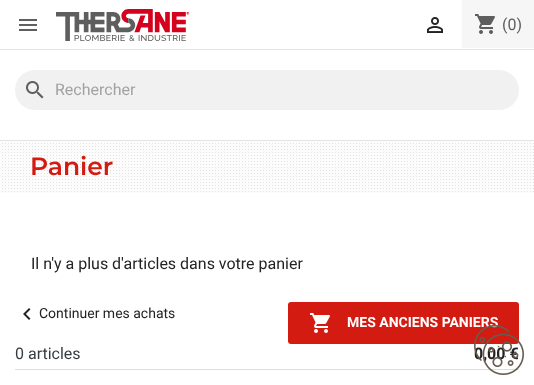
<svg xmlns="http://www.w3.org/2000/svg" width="534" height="385">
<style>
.a{font:16px Roboto;fill:#5f5e5e}
.b{font:16px Roboto;fill:#a2a2a2}
.c{font:100 25px Montserrat;fill:#d31b11}
.d{font:16px Roboto;fill:#232323}
.e{font:14px Roboto;fill:#232323}
.f{font:bold 14px Roboto;fill:#fff}
.g{font:16px Roboto;fill:#363a42}
.h{font:bold 16px Roboto;fill:#232323}
</style>
<rect width="100%" height="100%" fill="#fff"/>
<path fill="#e3e3e3" d="M0 140h534v1H0z"/>
<path fill="#e3e3e3" d="M0 49h534v1H0z"/>
<image href="1.png" x="19" y="19" width="18" height="12"/>
<image href="2.png" x="56" y="9" width="133" height="32"/>
<image href="3.png" x="427" y="17" width="16" height="16"/>
<path fill="#f6f6f6" d="M462 0h72v48H462z"/>
<image href="4.png" x="475" y="14" width="20" height="20"/>
<rect fill="#f1f1f1" x="15" y="70" width="504" height="40" rx="20"/>
<image href="5.png" x="26" y="81" width="18" height="18"/>
<path fill="#fcfcfc" d="M0 141h534v52H0z"/>
<image href="6.png" x="2" y="143" width="532" height="49"/>
<image href="7.png" x="23" y="308" width="8" height="12"/>
<rect fill="#d31b11" x="288" y="302" width="231" height="42" rx="3"/>
<image href="8.png" x="310" y="313" width="20" height="20"/>
<path fill="#ddd" d="M15 369h504v1H15z"/>
<text class="a" x="502" y="30">(0)</text>
<text class="b" x="55" y="95">Rechercher</text>
<text class="c" x="30" y="175">Panier</text>
<text class="d" x="31" y="269">Il n'y a plus d'articles dans votre panier</text>
<text class="e" x="39" y="318">Continuer mes achats</text>
<text class="f" x="347" y="327">MES ANCIENS PANIERS</text>
<text class="g" x="15" y="359">0 articles</text>
<text class="h" x="474" y="359">0,00 €</text>
<image href="9.png" x="474" y="325" width="50" height="50"/>
</svg>
